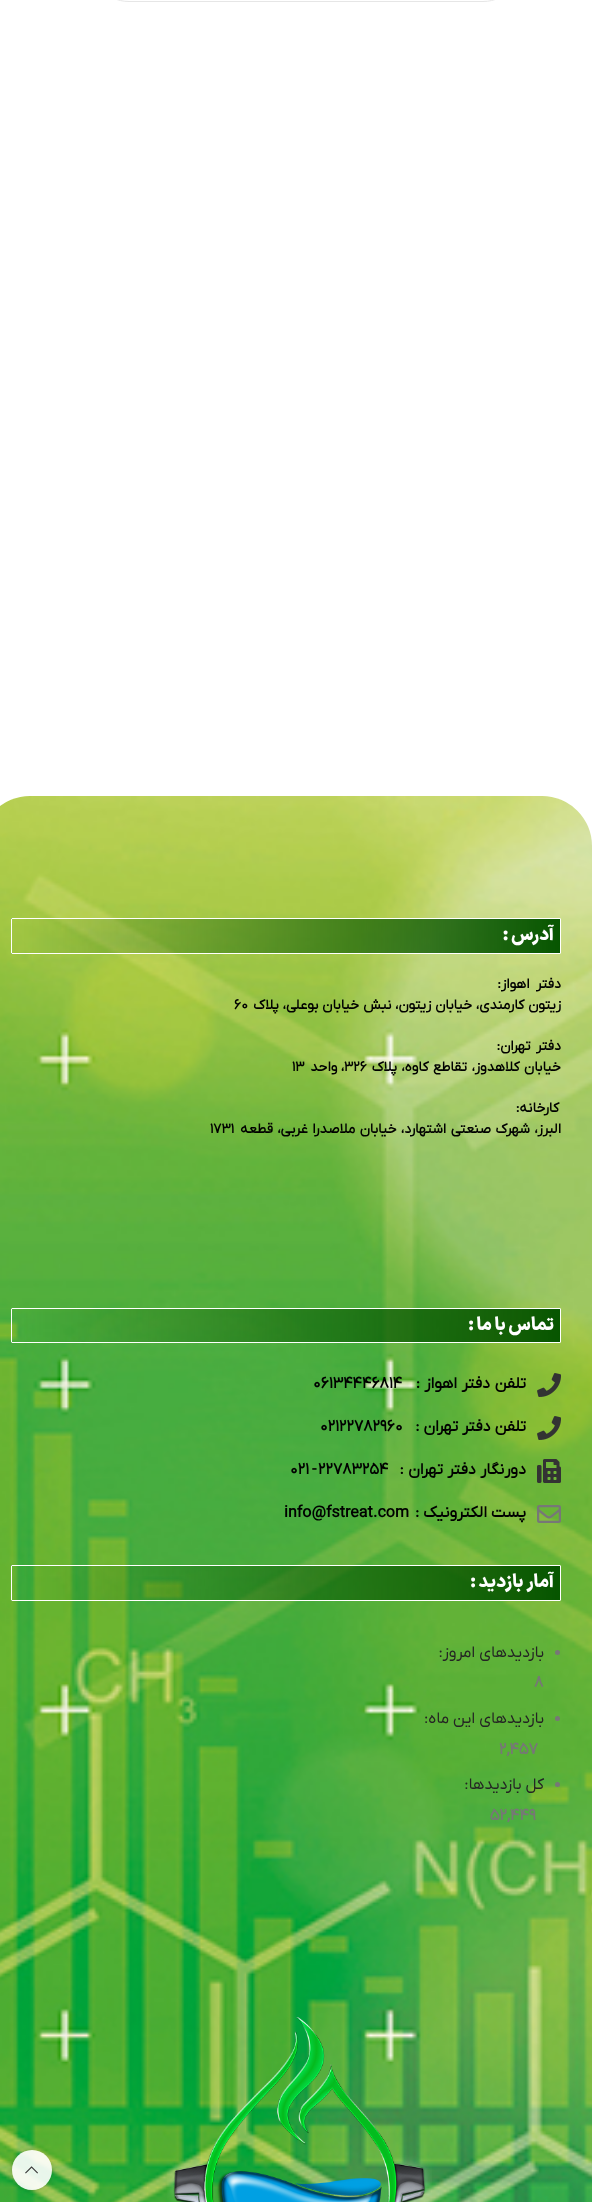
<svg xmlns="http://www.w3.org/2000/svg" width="612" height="2202">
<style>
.a{font:900 18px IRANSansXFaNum;direction:rtl;fill:#fff}
.b{font:bold 14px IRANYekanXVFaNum;direction:rtl;fill:#000}
.c{font:bold 14px IRANYekanXVFaNum;fill:#000}
.d{font:bold 16px IRANYekanXVFaNum;direction:rtl;fill:#000}
.e{font:bold 16px IRANYekanXVFaNum;fill:#000}
.f{font:16px IRANYekanXVFaNum;direction:rtl;fill:#242424}
.g{font:bold 16px IRANYekanXVFaNum;fill:#777}
</style>
<defs>
<clipPath id="clip1"><path d="M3 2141h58v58h-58zm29 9c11 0 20 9 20 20c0 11-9 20-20 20c-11 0-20-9-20-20c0-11 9-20 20-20z" clip-rule="evenodd"/></clipPath>
</defs>
<rect width="100%" height="100%" fill="#fff"/>
<rect fill="none" stroke="#e6e6e6" x="106.5" y="-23.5" width="399" height="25" rx="22.5"/>
<image href="1.png" x="0" y="796" width="592" height="1406"/>
<rect fill="none" stroke="#fff" x="11.5" y="918.5" width="549" height="35" rx="0.5"/>
<rect fill="none" stroke="#fff" x="11.5" y="1308.5" width="549" height="34" rx="0.5"/>
<image href="2.png" x="537" y="1373" width="24" height="24"/>
<image href="3.png" x="537" y="1416" width="24" height="24"/>
<image href="4.png" x="537" y="1459" width="24" height="24"/>
<image href="5.png" x="537" y="1505" width="24" height="18"/>
<rect fill="none" stroke="#fff" x="11.5" y="1565.5" width="549" height="35" rx="0.5"/>
<circle fill="#777" cx="557.5" cy="1652.5" r="2.5"/>
<circle fill="#777" cx="557.5" cy="1718.5" r="2.5"/>
<circle fill="#777" cx="557.5" cy="1784.5" r="2.5"/>
<image href="6.png" x="167" y="2017" width="265" height="185"/>
<g clip-path="url(#clip1)">
<rect fill="#0000002b" filter="blur(2.5px)" x="12" y="2150" width="40" height="40" rx="20"/>
</g>
<circle fill="#ffffffe6" cx="32" cy="2170" r="20"/>
<image href="7.png" x="25" y="2166" width="13" height="8"/>
<text class="a" x="554" y="940">آدرس :</text>
<text class="b" x="561" y="988" word-spacing="3">دفتر اهواز:</text>
<text class="b" x="561" y="1009" word-spacing="0.5">زیتون کارمندی، خیابان زیتون، نبش خیابان بوعلی، پلاک</text>
<text class="c" x="234" y="1009">60</text>
<text class="b" x="561" y="1050" word-spacing="2">دفتر تهران:</text>
<text class="b" x="561" y="1071" word-spacing="1">خیابان کلاهدوز، تقاطع کاوه، پلاک</text>
<text class="c" x="344" y="1071">326</text>
<text class="b" x="344" y="1071">، واحد</text>
<text class="c" x="292" y="1071">13</text>
<text class="b" x="559" y="1112">کارخانه:</text>
<text class="b" x="561" y="1133" word-spacing="1">البرز، شهرک صنعتی اشتهارد، خیابان ملاصدرا غربی، قطعه</text>
<text class="c" x="210" y="1133">1731</text>
<text class="a" x="554" y="1330">تماس با ما :</text>
<text class="d" x="526" y="1388" word-spacing="0.5">تلفن دفتر اهواز :</text>
<text class="e" x="313" y="1388">06134446814</text>
<text class="d" x="526" y="1431">تلفن دفتر تهران :</text>
<text class="e" x="320" y="1431">02122782960</text>
<text class="d" x="526" y="1474" word-spacing="0.5">دورنگار دفتر تهران :</text>
<text class="e" x="318" y="1474">22783254</text>
<text class="e" x="312" y="1474">-</text>
<text class="e" x="290" y="1474">021</text>
<text class="d" x="526" y="1517">پست الکترونیک :</text>
<text class="e" x="284" y="1517">info@fstreat.com</text>
<text class="a" x="554" y="1587">آمار بازدید :</text>
<text class="f" x="544" y="1657">بازدیدهای امروز:</text>
<text class="g" x="534" y="1687">8</text>
<text class="f" x="544" y="1723">بازدیدهای این ماه:</text>
<text class="g" x="499" y="1754">2,457</text>
<text class="f" x="544" y="1789">کل بازدیدها:</text>
<text class="g" x="490" y="1820">52,449</text>
</svg>
